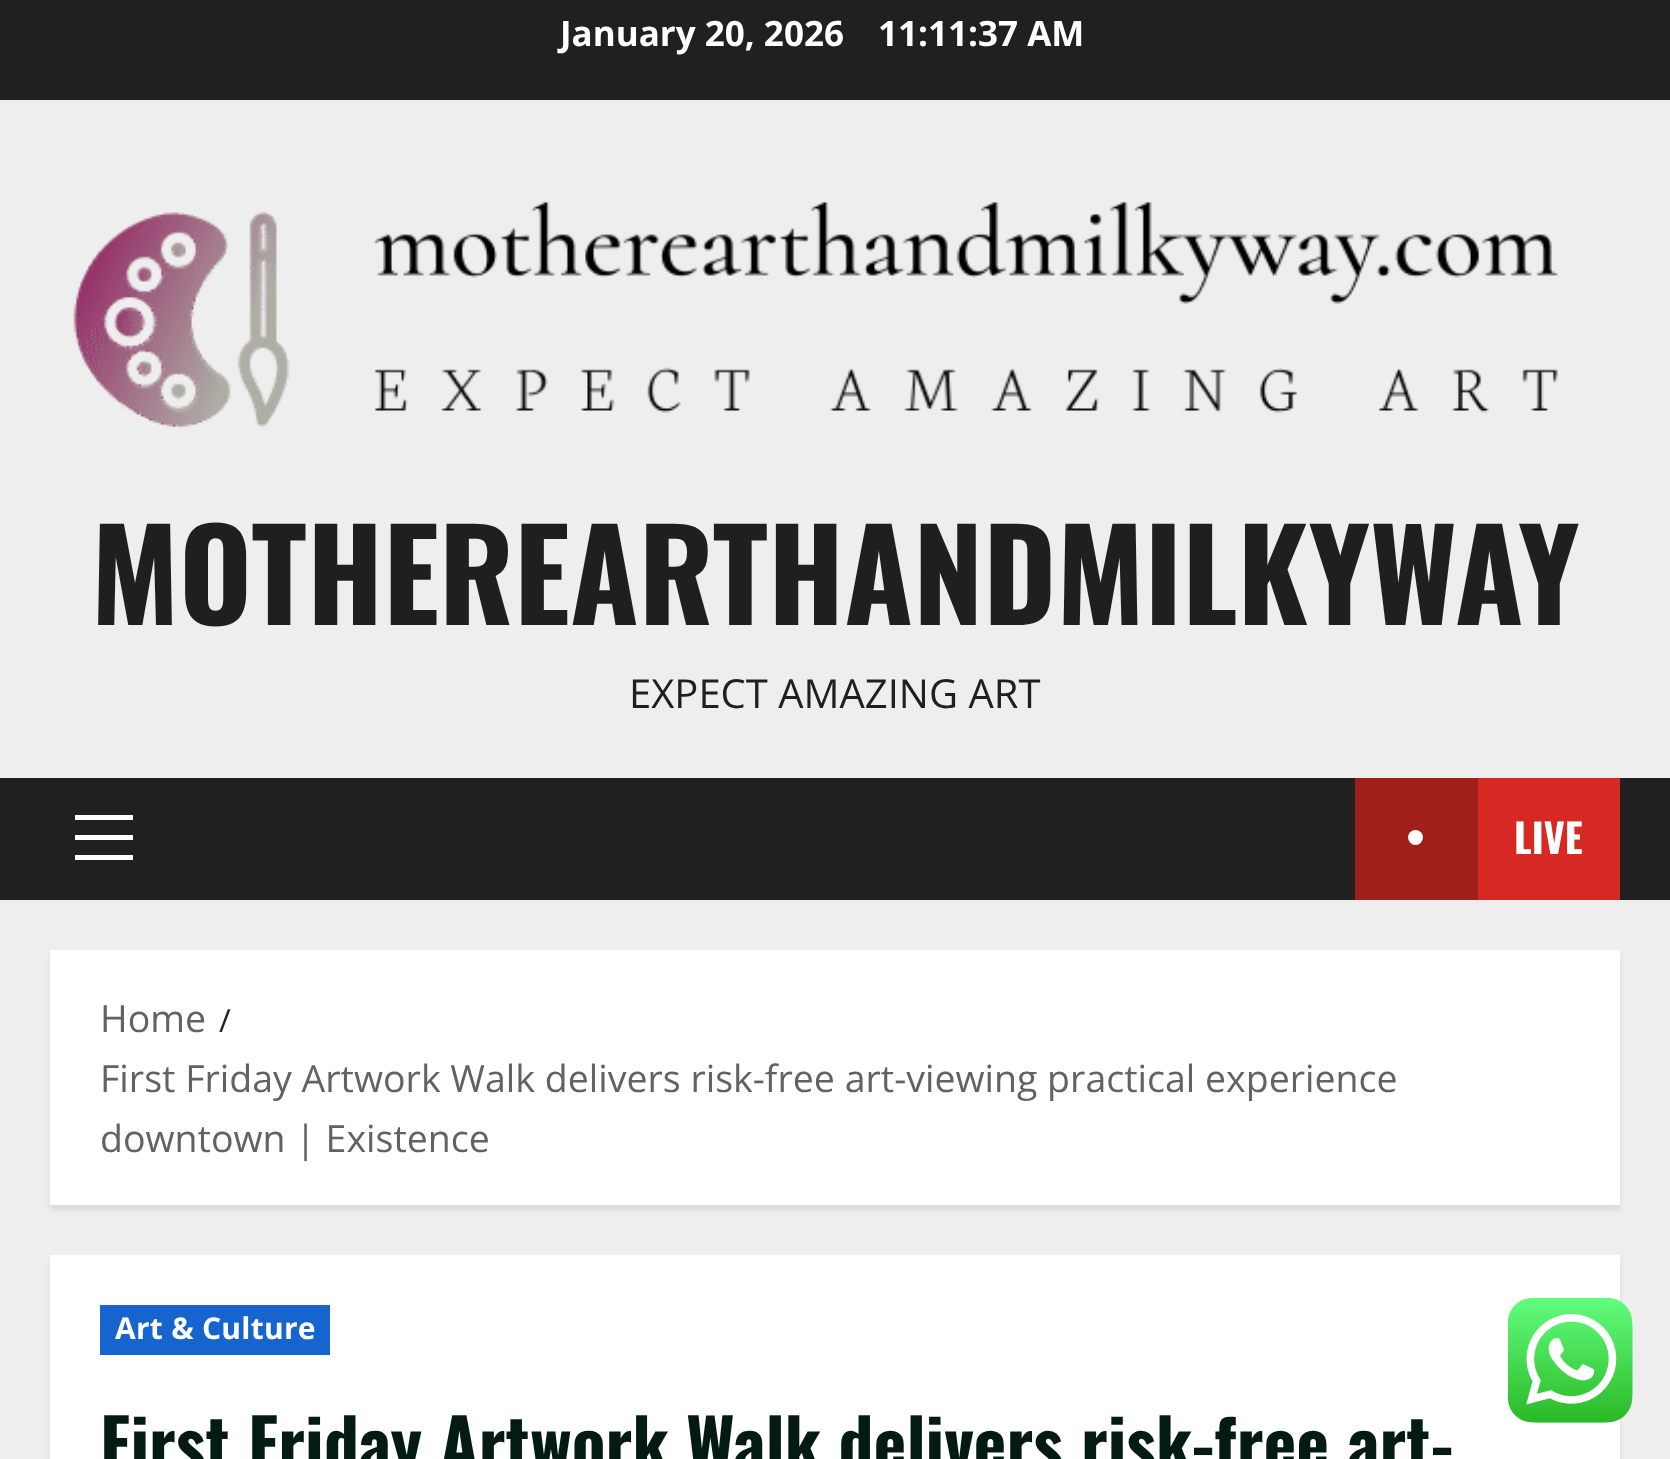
<svg xmlns="http://www.w3.org/2000/svg" width="1670" height="1459">
<style>
.a{font:bold 35px Open Sans;fill:#fff}
.b{font:bold 125px Oswald;fill:#1f1f1f}
.c{font:40px Open Sans;fill:#1f1f1f}
.d{font:bold 40px Oswald;fill:#fff}
.e{font:37.5px Open Sans;fill:#626262}
.f{font:32px Open Sans;fill:#1f1f1f}
.g{font:bold 30px Open Sans;letter-spacing:0.25px;fill:#fff}
.h{font:bold 70px Oswald;fill:#031b11}
</style>
<rect width="100%" height="100%" fill="#eee"/>
<path fill="#202020" d="M0 0h1670v100H0z"/>
<image href="1.png" x="72" y="201" width="1486" height="228"/>
<path fill="#202020" d="M0 778h1670v122H0z"/>
<path fill="#fff" d="M75 835h58v5H75z"/>
<path fill="#fff" d="M75 815h58v5H75z"/>
<path fill="#fff" d="M75 855h58v5H75z"/>
<path fill="#d72924" d="M1478 778h142v122H1478z"/>
<path fill="#a11f1b" d="M1355 778h123v122H1355z"/>
<circle fill="#fff" cx="1415.5" cy="837.5" r="7.5"/>
<path fill="#00000014" filter="blur(2.5px)" d="M50 955h1570v255H50z"/>
<path fill="#fff" d="M50 950h1570v255H50z"/>
<path fill="#00000014" filter="blur(2.5px)" d="M50 1260h1570v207H50z"/>
<path fill="#fff" d="M50 1255h1570v204H50z"/>
<path fill="#1665cf" d="M100 1305h230v50H100z"/>
<image href="2.png" x="1508" y="1298" width="125" height="125"/>
<text class="a" x="560" y="46">January 20, 2026</text>
<text class="a" x="878" y="46">11:11:37 AM</text>
<text class="b" x="91" y="625">MOTHEREARTHANDMILKYWAY</text>
<text class="c" x="629" y="708">EXPECT AMAZING ART</text>
<text class="d" x="1514" y="854">LIVE</text>
<text class="e" x="100" y="1032">Home</text>
<text class="f" x="219" y="1032">/</text>
<text class="e" x="100" y="1092">First Friday Artwork Walk delivers risk-free art-viewing practical experience</text>
<text class="e" x="100" y="1152">downtown | Existence</text>
<text class="g" x="115" y="1339">Art &amp; Culture</text>
<text class="h" x="100" y="1472">First Friday Artwork Walk delivers risk-free art-</text>
</svg>
